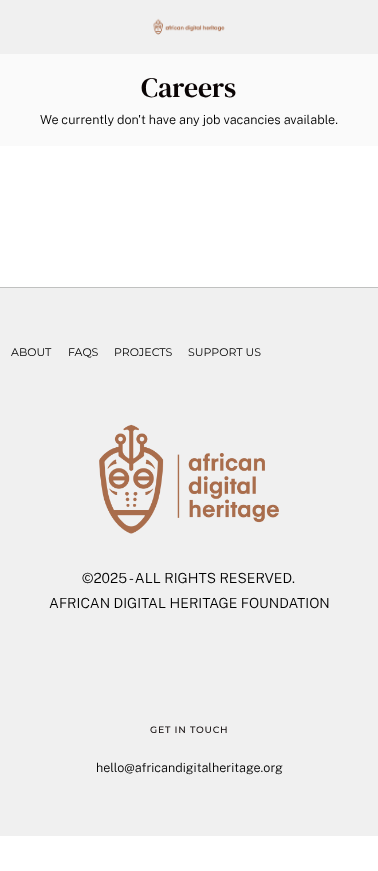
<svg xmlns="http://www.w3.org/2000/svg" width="378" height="871">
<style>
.a{font:28px DM Serif Text;fill:#0a0404}
.b{font:300 12.6px Public Sans;fill:#000}
.c{font:100 11px Montserrat;fill:#000}
.d{font:300 14px Public Sans;fill:#000}
.e{font:bold 9px Montserrat;letter-spacing:1px;fill:#0a0404}
</style>
<rect width="100%" height="100%" fill="#fff"/>
<path fill="#f0f0f0" d="M0 0h378v54H0z"/>
<image href="1.png" x="153" y="18" width="72" height="17"/>
<path fill="#fafafa" d="M0 54h378v92H0z"/>
<path fill="#f0f0f0" d="M0 288h378v548H0z"/>
<path fill="#c0c1c0" d="M0 287h378v1H0z"/>
<image href="2.png" x="99" y="424" width="180" height="110"/>
<text class="a" x="141" y="97">Careers</text>
<text class="b" x="40" y="124">We currently don't have any job vacancies available.</text>
<text class="c" x="11" y="356">ABOUT</text>
<text class="c" x="68" y="356">FAQS</text>
<text class="c" x="114" y="356">PROJECTS</text>
<text class="c" x="188" y="356">SUPPORT US</text>
<text class="d" x="82" y="583">©2025 - ALL RIGHTS RESERVED.</text>
<text class="d" x="49" y="608">AFRICAN DIGITAL HERITAGE FOUNDATION</text>
<text class="e" x="150" y="733">GET IN TOUCH</text>
<text class="b" x="96" y="772">hello@africandigitalheritage.org</text>
</svg>
